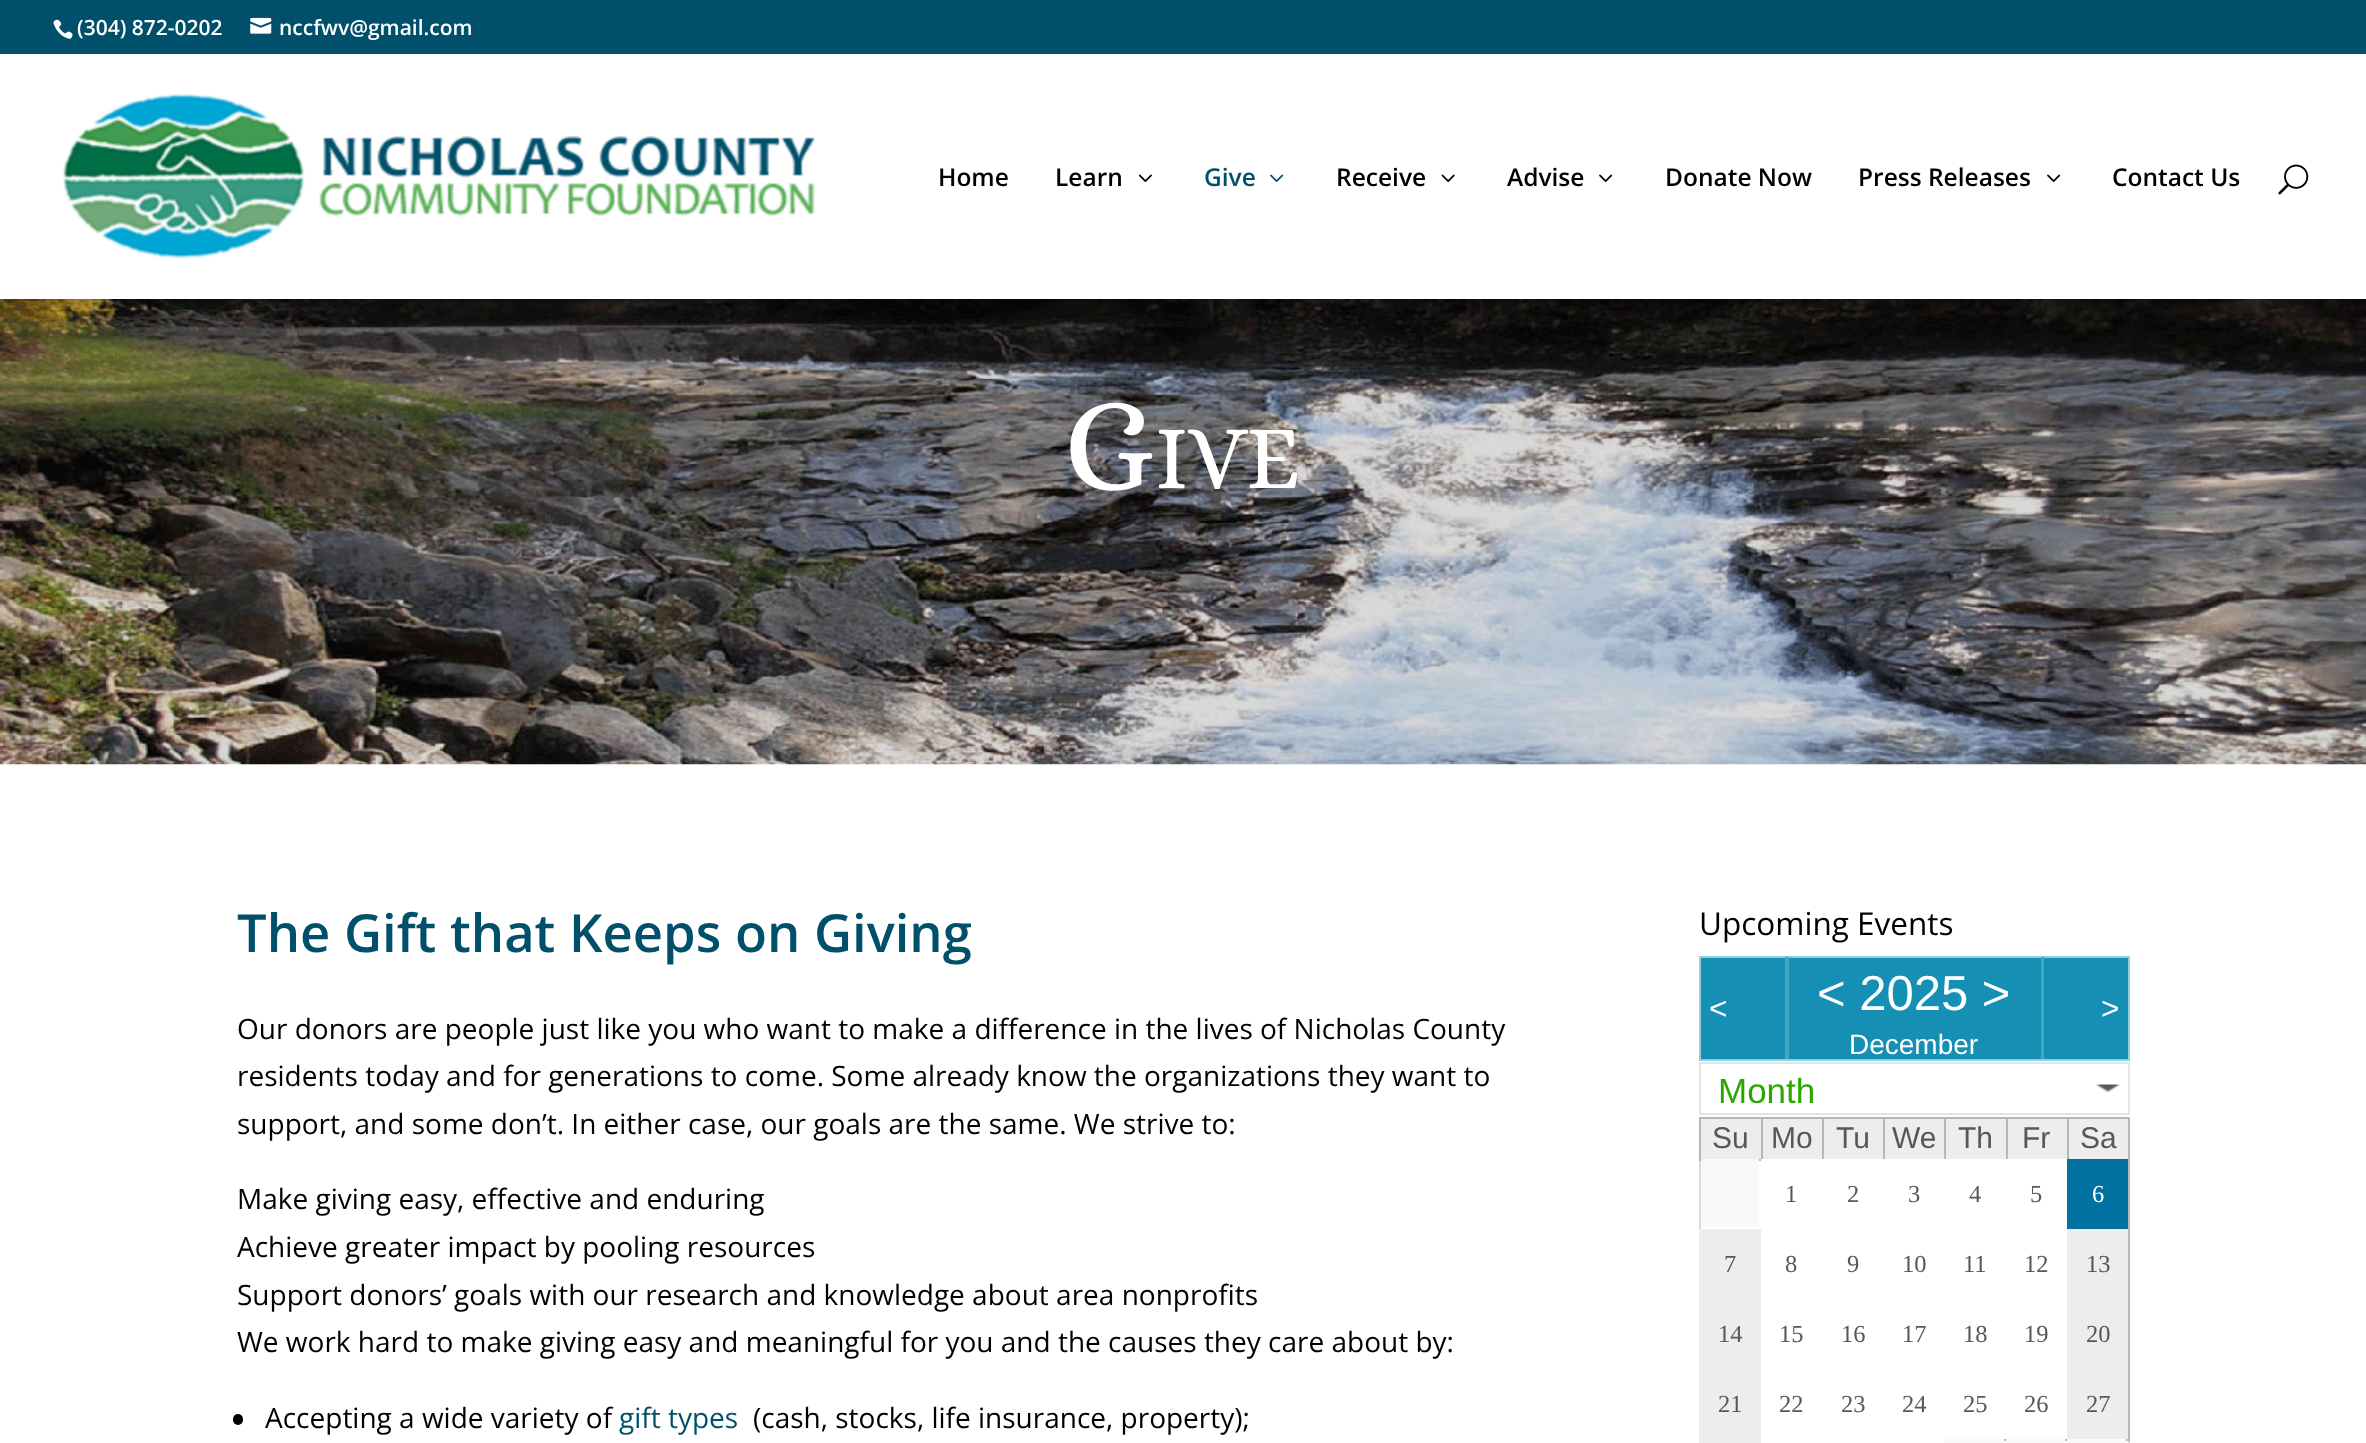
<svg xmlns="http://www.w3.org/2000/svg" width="2366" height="1443">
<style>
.a{font:600 21px Open Sans;fill:#fff}
.b{font:600 24.5px Open Sans;fill:#000}
.c{font:600 24.5px Open Sans;fill:#00506b}
.d{font:131px Alice;fill:#fff}
.e{font:92px Alice;fill:#fff}
.f{font:600 52.5px Open Sans;fill:#00506b}
.g{font:28px Open Sans;fill:#000}
.h{font:28px Open Sans;fill:#00506b}
.i{font:31.5px Open Sans;fill:#000}
.j{font:31.5px Liberation Sans;fill:#fff}
.k{font:49px Liberation Sans;fill:#fff}
.l{font:28px Liberation Sans;fill:#fff}
.m{font:35px Liberation Sans;fill:#2aa800}
.n{font:30px Liberation Sans;fill:#585858}
.o{font:24.5px Liberation Serif;fill:#585858}
.p{font:24.5px Liberation Serif;fill:#fff}
</style>
<rect width="100%" height="100%" fill="#00506b"/>
<image href="1.png" x="53" y="19" width="20" height="20"/>
<image href="2.png" x="250" y="17" width="22" height="17"/>
<path fill="#fff" d="M0 764h2366v679H0z"/>
<image href="9.png" x="0" y="299" width="2366" height="466"/>
<path fill="#0000001a" d="M0 299h2332v2H0z"/>
<path fill="#fff" d="M0 54h2366v245H0z"/>
<image href="3.png" x="62" y="94" width="753" height="165"/>
<image href="4.png" x="1138" y="174" width="14" height="8"/>
<image href="5.png" x="1270" y="174" width="14" height="8"/>
<image href="6.png" x="1441" y="174" width="14" height="8"/>
<image href="7.png" x="1599" y="174" width="14" height="8"/>
<image href="7.png" x="2047" y="174" width="14" height="8"/>
<image href="8.png" x="2278" y="164" width="31" height="31"/>
<rect fill="#000" x="233" y="1414" width="10" height="11" rx="5"/>
<path fill="#168fb5" stroke="#91cedf" stroke-width="2" d="M1700 957h429v103H1700z"/>
<path fill="#44a5c3" d="M1785 957h4v102H1785z"/>
<path fill="#44a5c3" d="M2041 957h3v102H2041z"/>
<image href="10.png" x="2096" y="1084" width="24" height="8"/>
<path fill="none" stroke="#e5e4e4" stroke-width="2" d="M1700 1063h429v51H1700z"/>
<path fill="#ededed" d="M1701 1119h60v40H1701z"/>
<path fill="#b6b6b6" d="M2067 1117h63v2H2067z"/>
<path fill="#b6b6b6" d="M2067 1117h2v43H2067z"/>
<path fill="#b6b6b6" d="M2006 1117h63v2H2006z"/>
<path fill="#b6b6b6" d="M2006 1117h2v43H2006z"/>
<path fill="#b6b6b6" d="M1944 1117h63v2H1944z"/>
<path fill="#b6b6b6" d="M1944 1117h2v43H1944z"/>
<path fill="#b6b6b6" d="M1883 1117h63v2H1883z"/>
<path fill="#b6b6b6" d="M1883 1117h2v43H1883z"/>
<path fill="#b6b6b6" d="M1822 1117h63v2H1822z"/>
<path fill="#b6b6b6" d="M1822 1117h2v43H1822z"/>
<path fill="#b6b6b6" d="M1761 1117h63v2H1761z"/>
<path fill="#b6b6b6" d="M1761 1117h2v43H1761z"/>
<path fill="#b6b6b6" d="M1699 1117h63v2H1699z"/>
<path fill="#d6dde2" d="M1699 1159h2v71H1699z"/>
<path fill="#b6b6b6" d="M1699 1159h63v2H1699z"/>
<path fill="#b6b6b6" d="M1699 1117h2v43H1699z"/>
<path fill="#ededed" d="M1763 1119h59v40H1763z"/>
<path fill="#ededed" d="M1824 1119h59v40H1824z"/>
<path fill="#ededed" d="M1885 1119h59v40H1885z"/>
<path fill="#ededed" d="M1946 1119h60v40H1946z"/>
<path fill="#ededed" d="M2008 1119h59v40H2008z"/>
<path fill="#ededed" d="M2069 1119h59v40H2069z"/>
<path fill="#d6dde2" d="M2128 1439h2v4H2128z"/>
<path fill="#b6b6b6" d="M2128 1159h2v281H2128z"/>
<path fill="#b6b6b6" d="M2128 1117h2v43H2128z"/>
<path fill="#f9f9f9" d="M1701 1159h58v68H1701z"/>
<path fill="#fff" d="M1761 1159h2v2H1761z"/>
<path fill="#fff" d="M1822 1159h2v1H1822z"/>
<path fill="#fff" d="M1883 1159h2v1H1883z"/>
<path fill="#fff" d="M1944 1159h2v1H1944z"/>
<path fill="#fff" d="M2006 1159h2v1H2006z"/>
<path fill="#0071a0" d="M2067 1159h61v70H2067z"/>
<path fill="#ededed" d="M1699 1229h62v214H1699z"/>
<path fill="#ededed" d="M2067 1229h61v210H2067z"/>
<path fill="#b6b6b6" d="M2004 1439h3v2H2004z"/>
<path fill="#b6b6b6" d="M2065 1439h4v2H2065z"/>
<path fill="#b6b6b6" d="M2126 1439h4v2H2126z"/>
<path fill="#f9f9f9" d="M1944 1439h60v4H1944z"/>
<path fill="#f9f9f9" d="M2006 1439h59v4H2006z"/>
<path fill="#f9f9f9" d="M2067 1439h59v4H2067z"/>
<text class="a" x="77" y="35">(304) 872-0202</text>
<text class="a" x="279" y="35">nccfwv@gmail.com</text>
<text class="b" x="938" y="186">Home</text>
<text class="b" x="1055" y="186">Learn</text>
<text class="c" x="1204" y="186">Give</text>
<text class="b" x="1336" y="186">Receive</text>
<text class="b" x="1507" y="186">Advise</text>
<text class="b" x="1665" y="186">Donate Now</text>
<text class="b" x="1858" y="186">Press Releases</text>
<text class="b" x="2112" y="186">Contact Us</text>
<text class="d" x="1064" y="488">G</text>
<text class="e" x="1155" y="488">IVE</text>
<text class="f" x="237" y="952">The Gift that Keeps on Giving</text>
<text class="g" x="237" y="1039">Our donors are people just like you who want to make a difference in the lives of Nicholas County</text>
<text class="g" x="237" y="1086">residents today and for generations to come. Some already know the organizations they want to</text>
<text class="g" x="237" y="1134">support, and some don’t. In either case, our goals are the same. We strive to:</text>
<text class="g" x="237" y="1209">Make giving easy, effective and enduring</text>
<text class="g" x="237" y="1257">Achieve greater impact by pooling resources</text>
<text class="g" x="237" y="1305">Support donors’ goals with our research and knowledge about area nonprofits</text>
<text class="g" x="237" y="1352">We work hard to make giving easy and meaningful for you and the causes they care about by:</text>
<text class="g" x="265" y="1428">Accepting a wide variety of</text>
<text class="h" x="619" y="1428">gift types</text>
<text class="g" x="753" y="1428">(cash, stocks, life insurance, property);</text>
<text class="i" x="1699" y="935">Upcoming Events</text>
<text class="j" x="1709" y="1019">&lt;</text>
<text class="k" x="1817" y="1010">&lt; 2025 &gt;</text>
<text class="l" x="1849" y="1054">December</text>
<text class="j" x="2101" y="1019">&gt;</text>
<text class="m" x="1718" y="1103">Month</text>
<text class="n" x="1712" y="1148">Su</text>
<text class="n" x="1771" y="1148">Mo</text>
<text class="n" x="1836" y="1148">Tu</text>
<text class="n" x="1892" y="1148">We</text>
<text class="n" x="1958" y="1148">Th</text>
<text class="n" x="2022" y="1148">Fr</text>
<text class="n" x="2080" y="1148">Sa</text>
<text class="o" x="1785" y="1202">1</text>
<text class="o" x="1847" y="1202">2</text>
<text class="o" x="1908" y="1202">3</text>
<text class="o" x="1969" y="1202">4</text>
<text class="o" x="2030" y="1202">5</text>
<text class="p" x="2092" y="1202">6</text>
<text class="o" x="1724" y="1272">7</text>
<text class="o" x="1785" y="1272">8</text>
<text class="o" x="1847" y="1272">9</text>
<text class="o" x="1902" y="1272">10</text>
<text class="o" x="1963" y="1272">11</text>
<text class="o" x="2024" y="1272">12</text>
<text class="o" x="2086" y="1272">13</text>
<text class="o" x="1718" y="1342">14</text>
<text class="o" x="1779" y="1342">15</text>
<text class="o" x="1841" y="1342">16</text>
<text class="o" x="1902" y="1342">17</text>
<text class="o" x="1963" y="1342">18</text>
<text class="o" x="2024" y="1342">19</text>
<text class="o" x="2086" y="1342">20</text>
<text class="o" x="1718" y="1412">21</text>
<text class="o" x="1779" y="1412">22</text>
<text class="o" x="1841" y="1412">23</text>
<text class="o" x="1902" y="1412">24</text>
<text class="o" x="1963" y="1412">25</text>
<text class="o" x="2024" y="1412">26</text>
<text class="o" x="2086" y="1412">27</text>
</svg>
